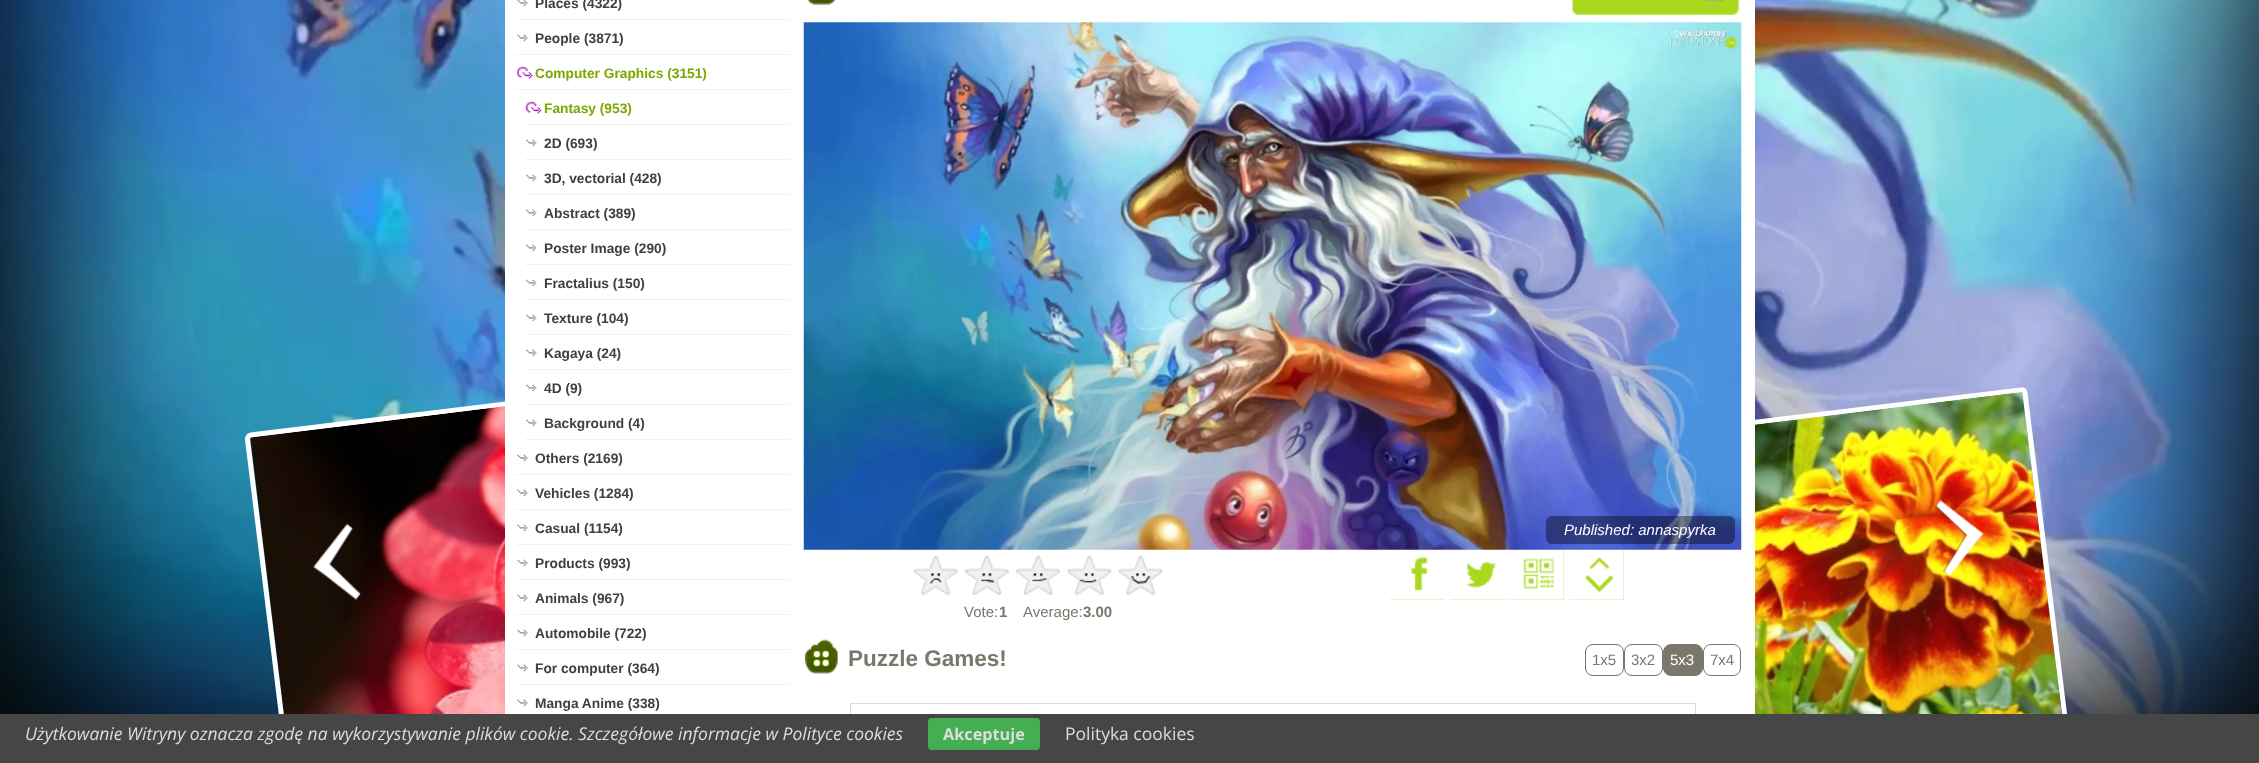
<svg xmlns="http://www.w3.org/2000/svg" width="2259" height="763">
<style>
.a{font:bold 13.75px Liberation Sans;fill:#404040}
.b{font:bold 13.75px Liberation Sans;fill:#7da600}
.c{font:italic 15px Liberation Sans;fill:#fff}
.d{font:15px Liberation Sans;fill:#7a776c}
.e{font:bold 15px Liberation Sans;fill:#7a776c}
.f{font:bold 22.5px Liberation Sans;fill:#7a776c}
.g{font:15px Liberation Sans;fill:#fff}
.h{font:italic 17.5px Open Sans;fill:#ddd}
.i{font:bold 16.25px Open Sans;fill:#ddd}
.j{font:17.5px Open Sans;fill:#ddd}
</style>
<rect width="100%" height="100%" fill="#fff"/>
<image href="1.png" x="0" y="0" width="2259" height="714"/>
<image href="2.png" x="0" y="0" width="2259" height="714"/>
<path fill="none" stroke="#fff" stroke-width="5" d="M251 435l369.5-45c2.5-.5 4 1 4.5 3l45.5 369.5c0 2.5-1.5 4-3.5 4.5l-369.5 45.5c-2 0-4-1.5-4.5-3.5l-45.5-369.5c0-2 1.5-4 3.5-4.5z"/>
<image href="3.png" x="250" y="406" width="255" height="308"/>
<image href="4.png" x="313" y="523" width="48" height="77"/>
<path fill="none" stroke="#fff" stroke-width="5" d="M1651 435l369.5-45c2.5-.5 4 1 4.5 3l45.5 369.5c0 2.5-1.5 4-3.5 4.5l-369.5 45.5c-2 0-4-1.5-4.5-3.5l-45.5-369.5c0-2 1.5-4 3.5-4.5z"/>
<path fill="#fff" d="M505 0h1250v714H505z"/>
<image href="5.png" x="517" y="0" width="11" height="7"/>
<path fill="#f8f1e9" d="M516 19h275v1H516z"/>
<image href="6.png" x="517" y="34" width="11" height="8"/>
<path fill="#f8f1e9" d="M516 54h275v1H516z"/>
<image href="7.png" x="516" y="66" width="17" height="13"/>
<path fill="#f8f1e9" d="M516 89h275v1H516z"/>
<image href="8.png" x="525" y="101" width="17" height="13"/>
<path fill="#f8f1e9" d="M525 124h266v1H525z"/>
<image href="9.png" x="526" y="139" width="11" height="8"/>
<path fill="#f8f1e9" d="M525 159h266v1H525z"/>
<image href="9.png" x="526" y="174" width="11" height="8"/>
<path fill="#f8f1e9" d="M525 194h266v1H525z"/>
<image href="9.png" x="526" y="209" width="11" height="8"/>
<path fill="#f8f1e9" d="M525 229h266v1H525z"/>
<image href="9.png" x="526" y="244" width="11" height="8"/>
<path fill="#f8f1e9" d="M525 264h266v1H525z"/>
<image href="9.png" x="526" y="279" width="11" height="8"/>
<path fill="#f8f1e9" d="M525 299h266v1H525z"/>
<image href="9.png" x="526" y="314" width="11" height="8"/>
<path fill="#f8f1e9" d="M525 334h266v1H525z"/>
<image href="9.png" x="526" y="349" width="11" height="8"/>
<path fill="#f8f1e9" d="M525 369h266v1H525z"/>
<image href="9.png" x="526" y="384" width="11" height="8"/>
<path fill="#f8f1e9" d="M525 404h266v1H525z"/>
<image href="9.png" x="526" y="419" width="11" height="8"/>
<path fill="#f8f1e9" d="M525 439h266v1H525z"/>
<image href="10.png" x="517" y="454" width="11" height="8"/>
<path fill="#f8f1e9" d="M516 474h275v1H516z"/>
<image href="6.png" x="517" y="489" width="11" height="8"/>
<path fill="#f8f1e9" d="M516 509h275v1H516z"/>
<image href="6.png" x="517" y="524" width="11" height="8"/>
<path fill="#f8f1e9" d="M516 544h275v1H516z"/>
<image href="6.png" x="517" y="559" width="11" height="8"/>
<path fill="#f8f1e9" d="M516 579h275v1H516z"/>
<image href="6.png" x="517" y="594" width="11" height="8"/>
<path fill="#f8f1e9" d="M516 614h275v1H516z"/>
<image href="6.png" x="517" y="629" width="11" height="8"/>
<path fill="#f8f1e9" d="M516 649h275v1H516z"/>
<image href="6.png" x="517" y="664" width="11" height="8"/>
<path fill="#f8f1e9" d="M516 684h275v1H516z"/>
<image href="6.png" x="517" y="699" width="11" height="8"/>
<image href="11.png" x="807" y="0" width="29" height="5"/>
<image href="12.png" x="1572" y="0" width="167" height="15"/>
<image href="13.png" x="803" y="22" width="939" height="528"/>
<rect fill="#00000066" x="1546" y="516" width="189" height="28" rx="6"/>
<path fill="#aad81f" d="M1390 557h55v43H1390z"/>
<image href="14.png" x="1390" y="550" width="55" height="50"/>
<path fill="#aad81f" d="M1450 562h55v38H1450z"/>
<image href="15.png" x="1450" y="550" width="55" height="50"/>
<path fill="#aad81f" d="M1509 550h55v50H1509z"/>
<image href="16.png" x="1509" y="550" width="55" height="50"/>
<path fill="#aad81f" d="M1569 550h55v50H1569z"/>
<image href="17.png" x="1569" y="550" width="55" height="50"/>
<image href="18.png" x="913" y="556" width="45" height="39"/>
<image href="19.png" x="965" y="556" width="44" height="39"/>
<image href="20.png" x="1016" y="556" width="44" height="39"/>
<image href="21.png" x="1067" y="556" width="45" height="39"/>
<image href="22.png" x="1118" y="556" width="45" height="39"/>
<image href="23.png" x="804" y="639" width="34" height="35"/>
<rect fill="none" stroke="#7a776c" x="1585.5" y="644.5" width="38" height="31" rx="7.5"/>
<rect fill="none" stroke="#7a776c" x="1624.5" y="644.5" width="38" height="31" rx="7.5"/>
<rect fill="#7a776c" stroke="#7a776c" x="1663.5" y="644.5" width="39" height="31" rx="7.5"/>
<rect fill="none" stroke="#7a776c" x="1703.5" y="644.5" width="37" height="31" rx="7.5"/>
<path fill="none" stroke="#dcd9d9" d="M850.5 703.5h845v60H850.5z"/>
<image href="24.png" x="1755" y="392" width="307" height="322"/>
<image href="25.png" x="1934" y="500" width="50" height="76"/>
<path fill="#464646" d="M0 714h2259v49H0z"/>
<rect fill="#45ae52" x="928" y="718" width="112" height="32" rx="4"/>
<text class="a" x="535" y="8">Places (4322)</text>
<text class="a" x="535" y="43">People (3871)</text>
<text class="b" x="535" y="78">Computer Graphics (3151)</text>
<text class="b" x="544" y="113">Fantasy (953)</text>
<text class="a" x="544" y="148">2D (693)</text>
<text class="a" x="544" y="183">3D, vectorial (428)</text>
<text class="a" x="544" y="218">Abstract (389)</text>
<text class="a" x="544" y="253">Poster Image (290)</text>
<text class="a" x="544" y="288">Fractalius (150)</text>
<text class="a" x="544" y="323">Texture (104)</text>
<text class="a" x="544" y="358">Kagaya (24)</text>
<text class="a" x="544" y="393">4D (9)</text>
<text class="a" x="544" y="428">Background (4)</text>
<text class="a" x="535" y="463">Others (2169)</text>
<text class="a" x="535" y="498">Vehicles (1284)</text>
<text class="a" x="535" y="533">Casual (1154)</text>
<text class="a" x="535" y="568">Products (993)</text>
<text class="a" x="535" y="603">Animals (967)</text>
<text class="a" x="535" y="638">Automobile (722)</text>
<text class="a" x="535" y="673">For computer (364)</text>
<text class="a" x="535" y="708">Manga Anime (338)</text>
<text class="c" x="1564" y="535">Published: annaspyrka</text>
<text class="d" x="964" y="617">Vote:</text>
<text class="e" x="999" y="617">1</text>
<text class="d" x="1023" y="617">Average:</text>
<text class="e" x="1083" y="617">3.00</text>
<text class="f" x="848" y="666">Puzzle Games!</text>
<text class="d" x="1592" y="665">1x5</text>
<text class="d" x="1631" y="665">3x2</text>
<text class="g" x="1670" y="665">5x3</text>
<text class="d" x="1710" y="665">7x4</text>
<text class="h" x="25" y="740">Użytkowanie Witryny oznacza zgodę na wykorzystywanie plików cookie. Szczegółowe informacje w Polityce cookies</text>
<text class="i" x="943" y="740">Akceptuje</text>
<text class="j" x="1065" y="740">Polityka cookies</text>
</svg>
